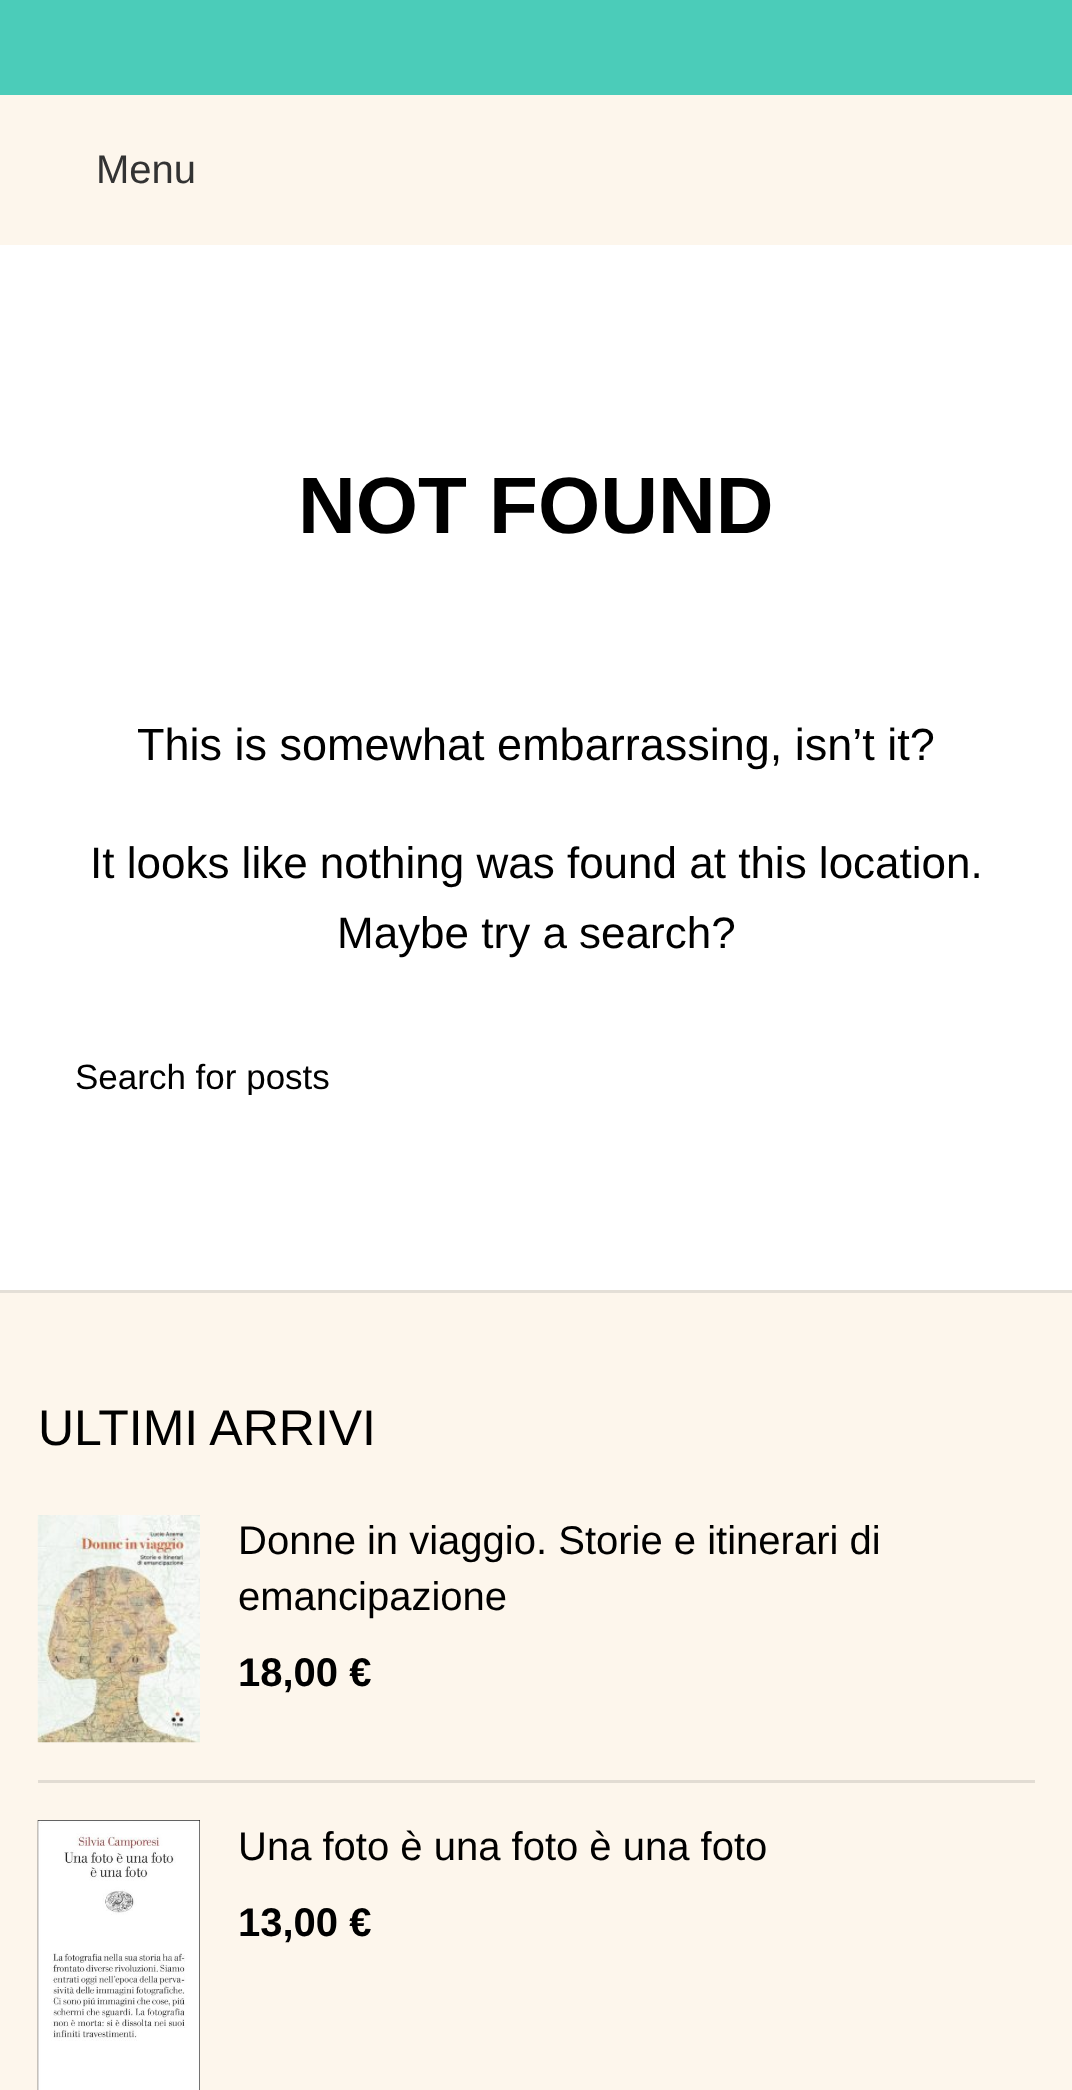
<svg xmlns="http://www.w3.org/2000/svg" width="1072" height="2090">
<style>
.a{font:40px Liberation Sans;fill:#333}
.b{font:bold 80px Liberation Sans;fill:#000}
.c{font:45px Liberation Sans;fill:#000}
.d{font:44px Liberation Sans;fill:#000}
.e{font:35px Liberation Sans;fill:#000}
.f{font:50px Liberation Sans;fill:#000}
.g{font:40px Liberation Sans;fill:#000}
.h{font:bold 40px Liberation Sans;fill:#000}
</style>
<defs>
<clipPath id="clip1"><path d="M75 1055h845v40H75z"/></clipPath>
</defs>
<rect width="100%" height="100%" fill="#fff"/>
<path fill="#4bccb9" d="M0 0h1072v95H0z"/>
<path fill="#fdf6ec" d="M0 95h1072v150H0z"/>
<path fill="#fdf6ec" d="M0 1293h1072v797H0z"/>
<path fill="#e4dfd7" d="M0 1290h1072v3H0z"/>
<path fill="#e2dcd3" d="M38 1780h997v3H38z"/>
<image href="1.png" x="37" y="1515" width="163" height="228"/>
<image href="2.png" x="37" y="1820" width="163" height="270"/>
<text class="a" x="96" y="183">Menu</text>
<text class="b" x="298" y="533">NOT FOUND</text>
<text class="c" x="137" y="760">This is somewhat embarrassing, isn’t it?</text>
<text class="d" x="90" y="878">It looks like nothing was found at this location.</text>
<text class="d" x="337" y="948">Maybe try a search?</text>
<g clip-path="url(#clip1)">
<text class="e" x="75" y="1089">Search for posts</text>
</g>
<text class="f" x="38" y="1445">ULTIMI ARRIVI</text>
<text class="g" x="238" y="1554">Donne in viaggio. Storie e itinerari di</text>
<text class="g" x="238" y="1610">emancipazione</text>
<text class="h" x="238" y="1686">18,00 €</text>
<text class="g" x="238" y="1860">Una foto è una foto è una foto</text>
<text class="h" x="238" y="1936">13,00 €</text>
</svg>
